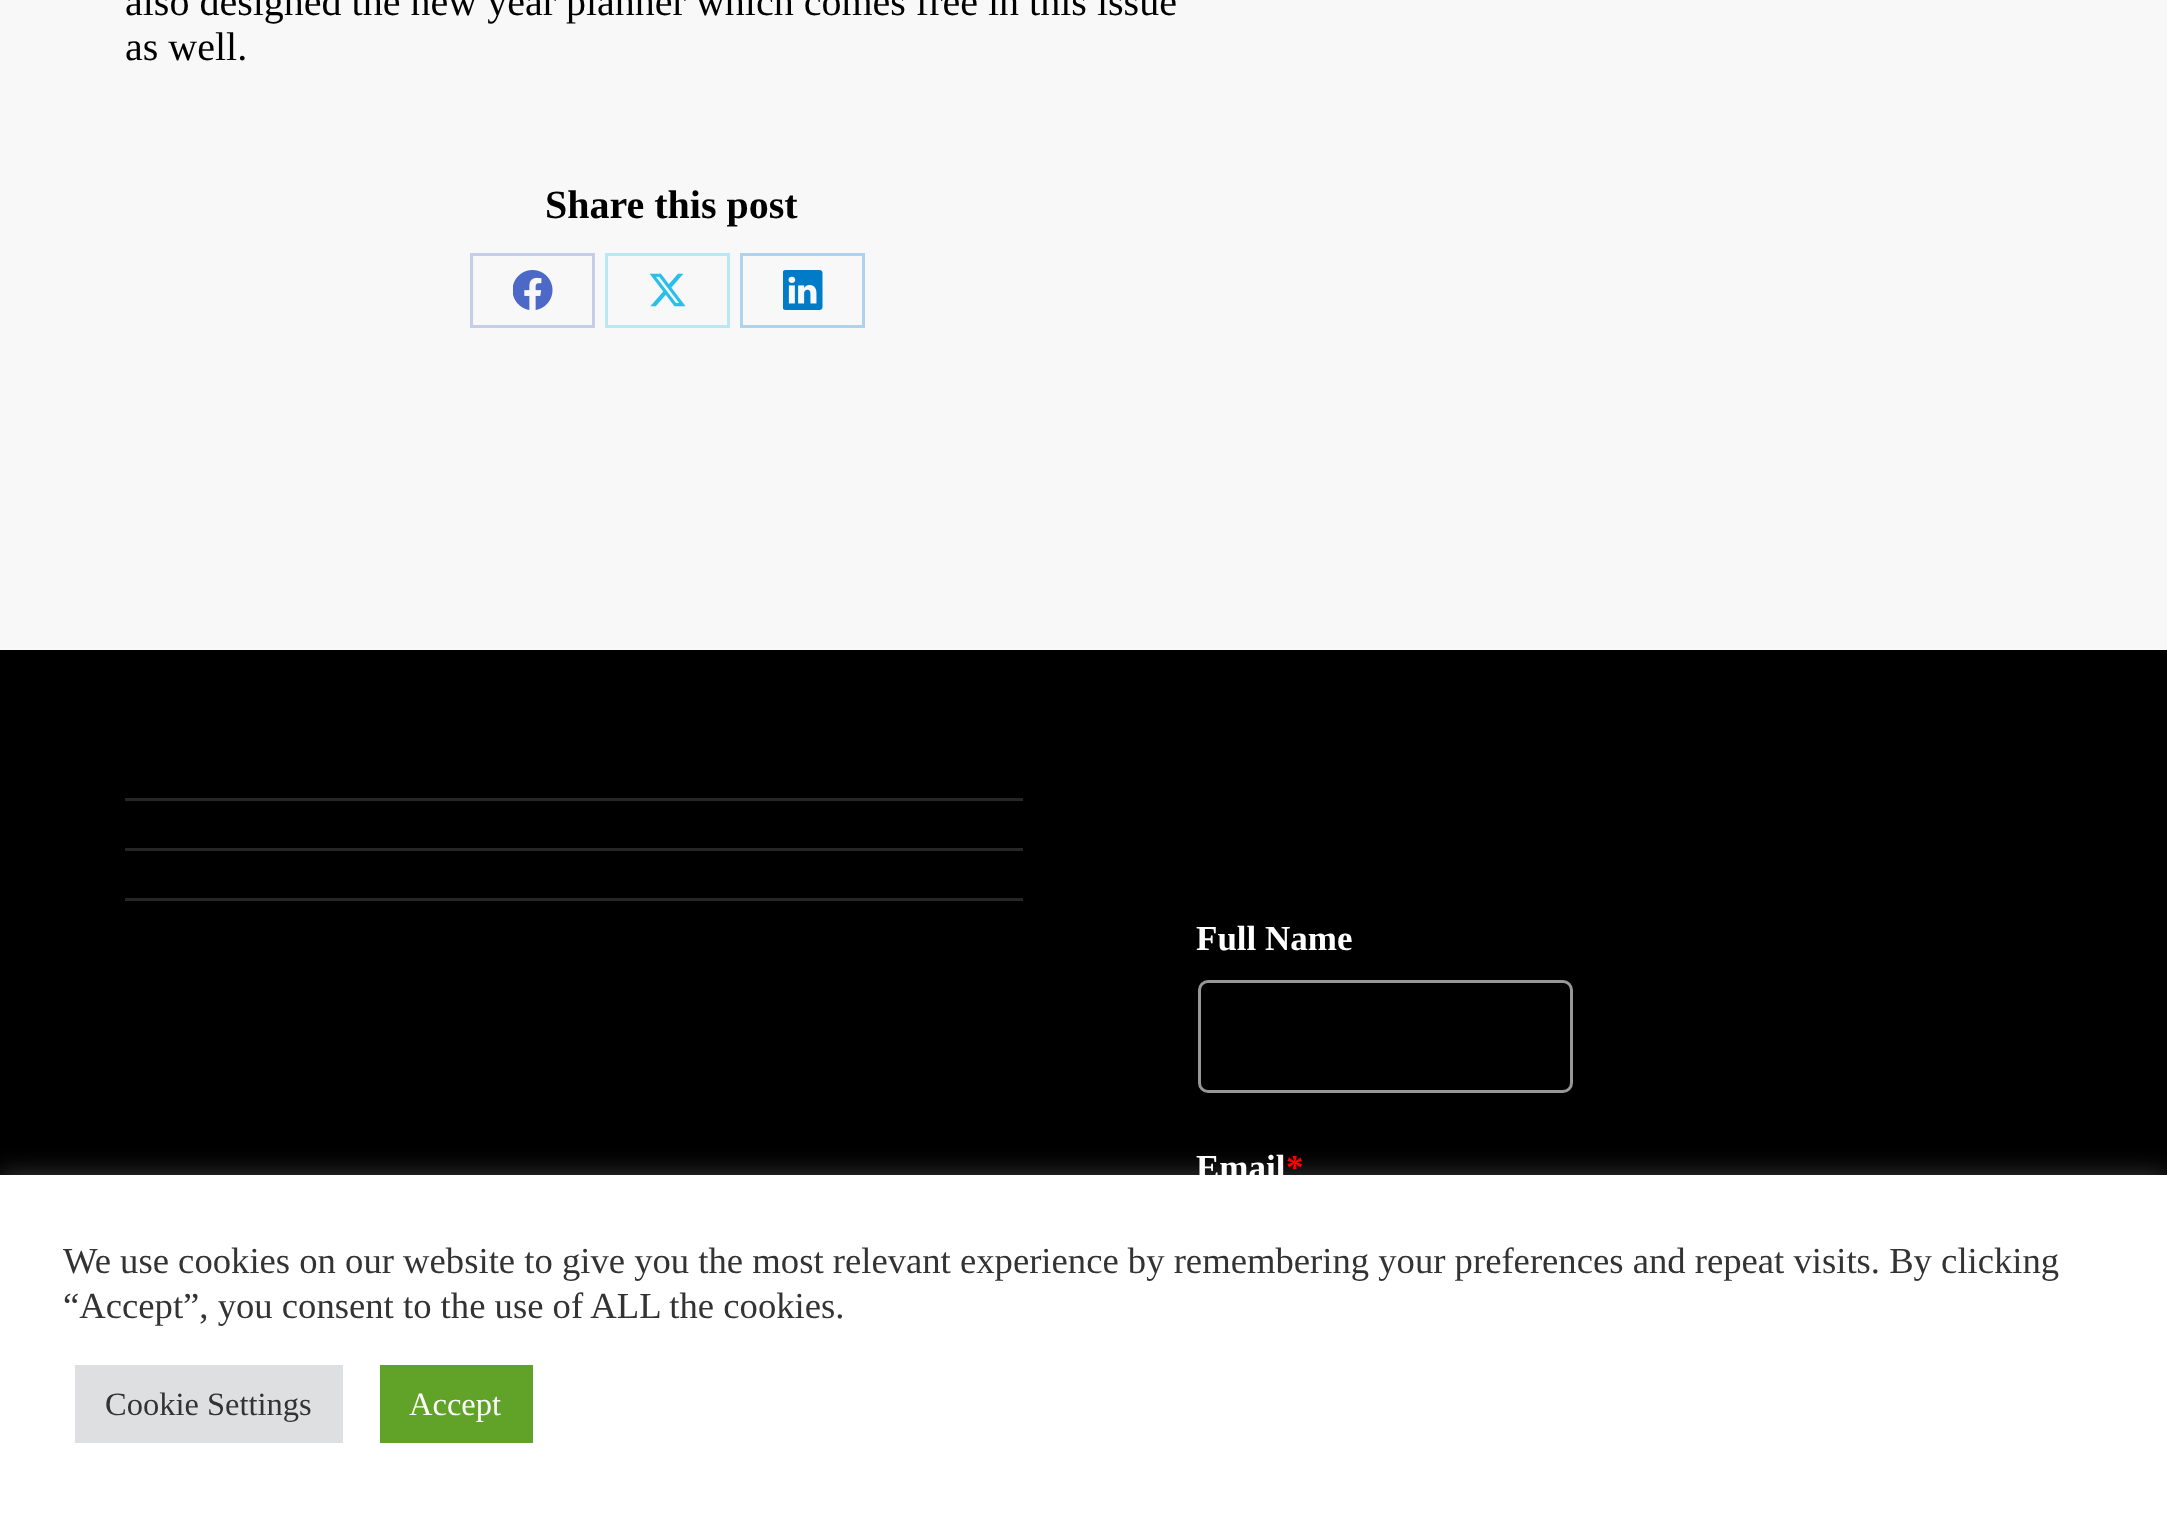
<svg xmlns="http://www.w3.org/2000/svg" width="2167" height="1516">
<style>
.a{font:40px Liberation Serif;fill:#000}
.b{font:bold 40px Liberation Serif;fill:#000}
.c{font:bold 35px Liberation Serif;fill:#fff}
.d{font:bold 35px Liberation Serif;fill:#f00}
.e{font:36.67px Liberation Serif;fill:#333}
.f{font:32.5px Liberation Serif;fill:#333}
.g{font:32.5px Liberation Serif;fill:#fff}
</style>
<rect width="100%" height="100%" fill="#f8f8f9"/>
<path fill="none" stroke="#c4cdea" stroke-width="3" d="M471.5 254.5h122v72H471.5z"/>
<image href="1.png" x="513" y="270" width="40" height="40"/>
<path fill="none" stroke="#bae7f5" stroke-width="3" d="M606.5 254.5h122v72H606.5z"/>
<image href="2.png" x="649" y="273" width="37" height="34"/>
<path fill="none" stroke="#aed3ea" stroke-width="3" d="M741.5 254.5h122v72H741.5z"/>
<image href="3.png" x="783" y="270" width="40" height="40"/>
<path fill="#000" d="M0 650h2167v525H0z"/>
<path fill="#262626" d="M125 798h898v3H125z"/>
<path fill="#262626" d="M125 848h898v3H125z"/>
<path fill="#262626" d="M125 898h898v3H125z"/>
<rect fill="none" stroke="#979797" stroke-width="3" x="1199.5" y="981.5" width="372" height="110" rx="8.5"/>
<path fill="#acabab4d" filter="blur(12.5px)" d="M0 1173h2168v342H0z"/>
<path fill="#fff" d="M0 1175h2167v341H0z"/>
<path fill="#dedfe0" d="M75 1365h268v78H75z"/>
<path fill="#61a229" d="M380 1365h153v78H380z"/>
<text class="a" x="125" y="15">also designed the new year planner which comes free in this issue</text>
<text class="a" x="125" y="60">as well.</text>
<text class="b" x="545" y="218">Share this post</text>
<text class="c" x="1196" y="950">Full Name</text>
<text class="c" x="1196" y="1179">Email</text>
<text class="d" x="1286" y="1179">*</text>
<text class="e" x="63" y="1273">We use cookies on our website to give you the most relevant experience by remembering your preferences and repeat visits. By clicking</text>
<text class="e" x="63" y="1318">“Accept”, you consent to the use of ALL the cookies.</text>
<text class="f" x="105" y="1415">Cookie Settings</text>
<text class="g" x="409" y="1415">Accept</text>
</svg>
